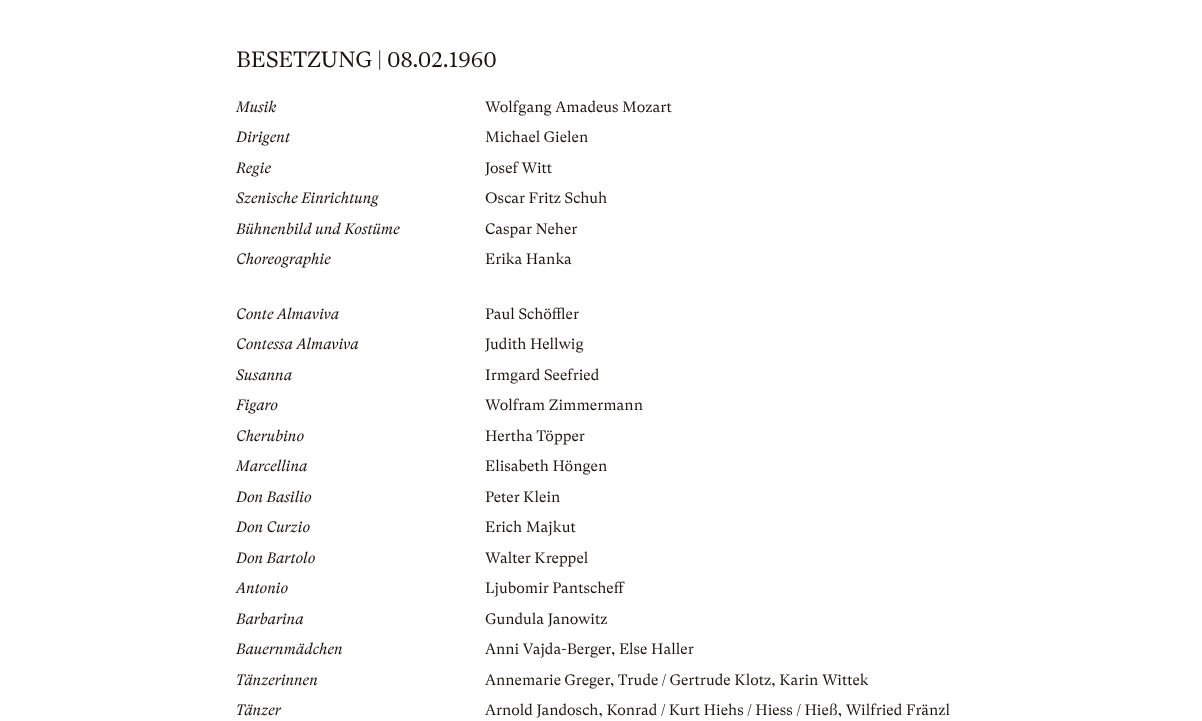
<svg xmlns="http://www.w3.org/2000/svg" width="1202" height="721">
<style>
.a{font:22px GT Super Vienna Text;fill:#19140e}
.b{font:italic 15px GT Super Vienna Text;fill:#19140e}
.c{font:15px GT Super Vienna Text;fill:#19140e}
</style>
<rect width="100%" height="100%" fill="#fff"/>
<text class="a" x="236" y="67">BESETZUNG | 08.02.1960</text>
<text class="b" x="236" y="112">Musik</text>
<text class="c" x="485" y="112">Wolfgang Amadeus Mozart</text>
<text class="b" x="236" y="142">Dirigent</text>
<text class="c" x="485" y="142">Michael Gielen</text>
<text class="b" x="236" y="173">Regie</text>
<text class="c" x="485" y="173">Josef Witt</text>
<text class="b" x="236" y="203">Szenische Einrichtung</text>
<text class="c" x="485" y="203">Oscar Fritz Schuh</text>
<text class="b" x="236" y="234">Bühnenbild und Kostüme</text>
<text class="c" x="485" y="234">Caspar Neher</text>
<text class="b" x="236" y="264">Choreographie</text>
<text class="c" x="485" y="264">Erika Hanka</text>
<text class="b" x="236" y="319">Conte Almaviva</text>
<text class="c" x="485" y="319">Paul Schöffler</text>
<text class="b" x="236" y="349">Contessa Almaviva</text>
<text class="c" x="485" y="349">Judith Hellwig</text>
<text class="b" x="236" y="380">Susanna</text>
<text class="c" x="485" y="380">Irmgard Seefried</text>
<text class="b" x="236" y="410">Figaro</text>
<text class="c" x="485" y="410">Wolfram Zimmermann</text>
<text class="b" x="236" y="441">Cherubino</text>
<text class="c" x="485" y="441">Hertha Töpper</text>
<text class="b" x="236" y="471">Marcellina</text>
<text class="c" x="485" y="471">Elisabeth Höngen</text>
<text class="b" x="236" y="502">Don Basilio</text>
<text class="c" x="485" y="502">Peter Klein</text>
<text class="b" x="236" y="532">Don Curzio</text>
<text class="c" x="485" y="532">Erich Majkut</text>
<text class="b" x="236" y="563">Don Bartolo</text>
<text class="c" x="485" y="563">Walter Kreppel</text>
<text class="b" x="236" y="593">Antonio</text>
<text class="c" x="485" y="593">Ljubomir Pantscheff</text>
<text class="b" x="236" y="624">Barbarina</text>
<text class="c" x="485" y="624">Gundula Janowitz</text>
<text class="b" x="236" y="654">Bauernmädchen</text>
<text class="c" x="485" y="654">Anni Vajda-Berger, Else Haller</text>
<text class="b" x="236" y="685">Tänzerinnen</text>
<text class="c" x="485" y="685">Annemarie Greger, Trude / Gertrude Klotz, Karin Wittek</text>
<text class="b" x="236" y="715">Tänzer</text>
<text class="c" x="485" y="715">Arnold Jandosch, Konrad / Kurt Hiehs / Hiess / Hieß, Wilfried Fränzl</text>
</svg>
